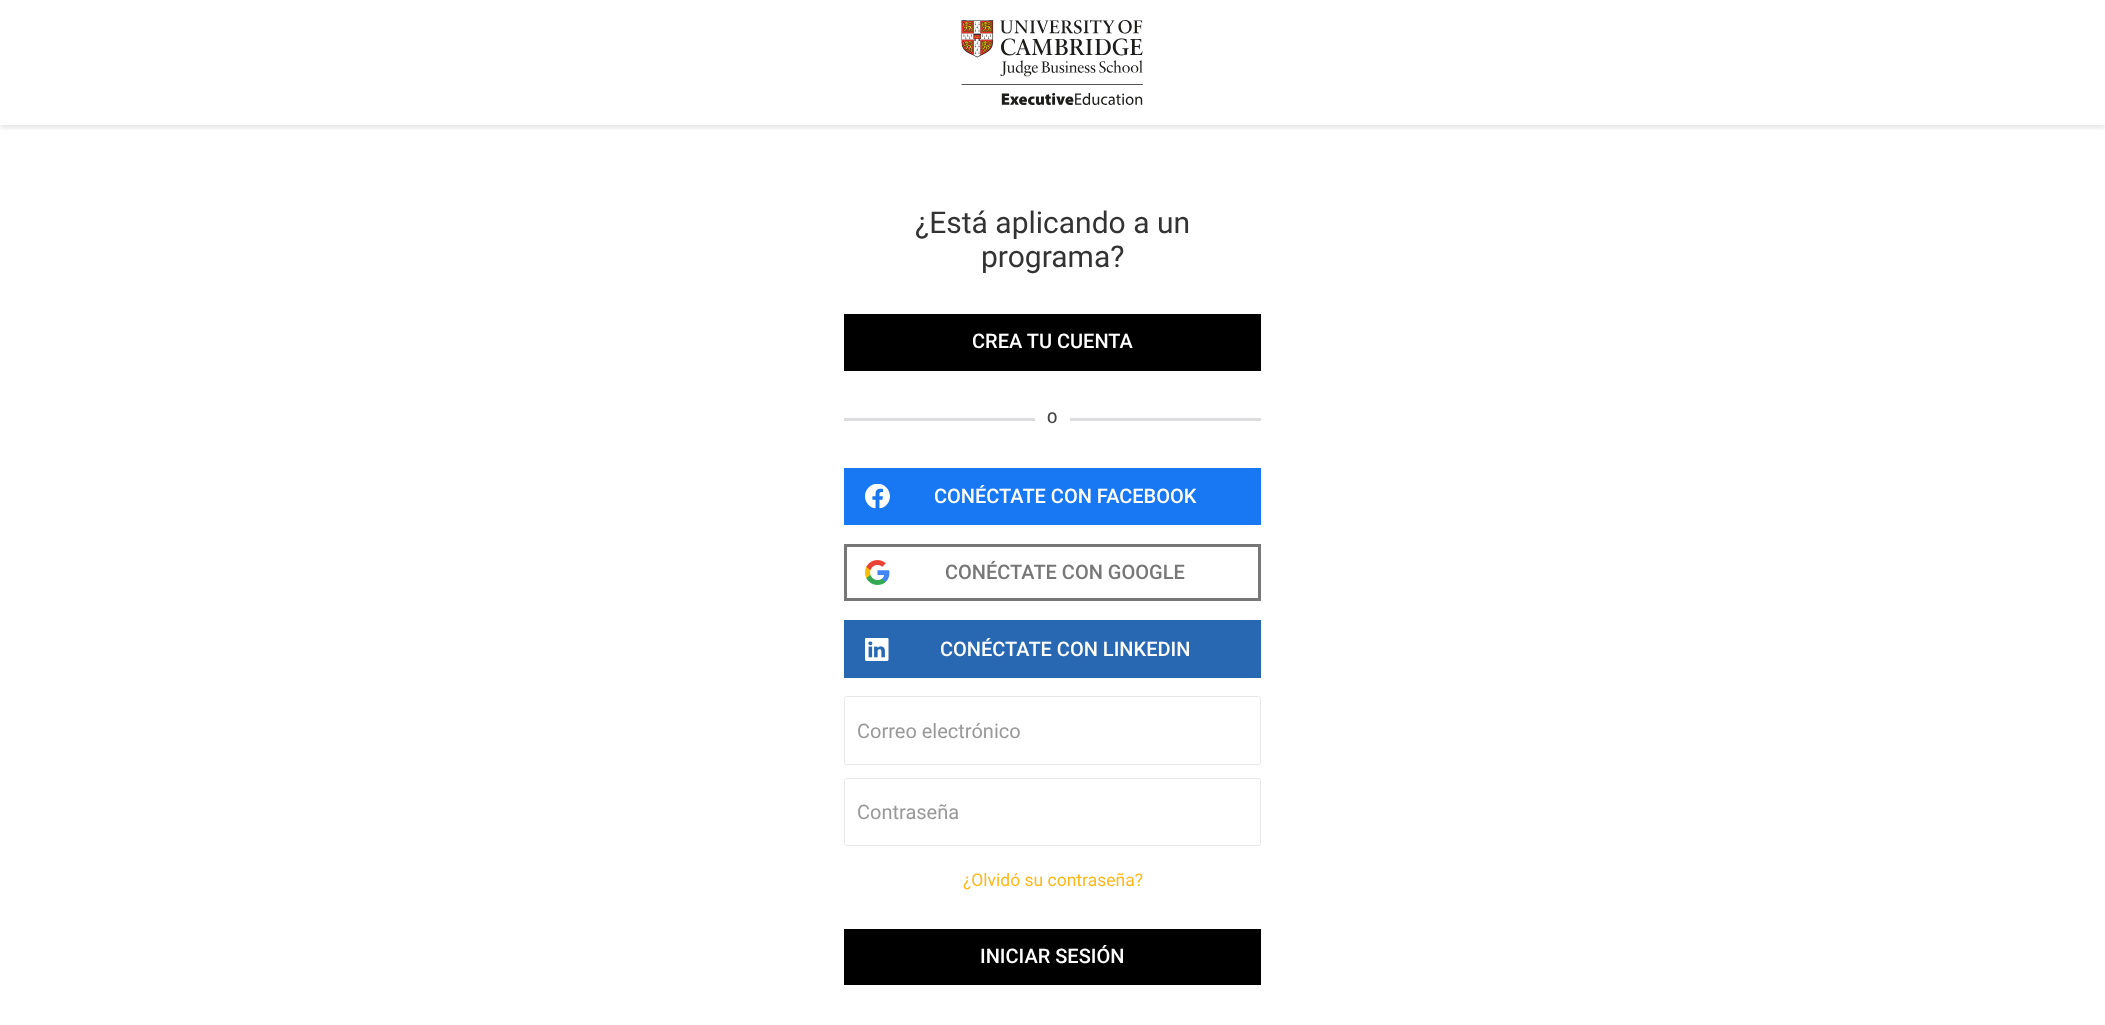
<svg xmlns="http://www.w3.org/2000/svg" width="2105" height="1025">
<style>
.a{font:30px Roboto;fill:#333}
.b{font:500 20px Roboto;fill:#fff}
.c{font:500 15px Roboto;fill:#444}
.d{font:500 20px Roboto;fill:#777}
.e{font:20px Roboto;fill:#999}
.f{font:17.5px Roboto;fill:#ffb81c}
</style>
<defs>
<clipPath id="clip1"><path d="M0 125h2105v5H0z"/></clipPath>
</defs>
<rect width="100%" height="100%" fill="#fff"/>
<g clip-path="url(#clip1)">
<path fill="#0000001a" filter="blur(2.5px)" d="M0 3h2105v125H0z"/>
</g>
<image href="1.png" x="961" y="19" width="182" height="86"/>
<path fill="#000" d="M844 314h417v57H844z"/>
<path fill="#dddddf" d="M844 418h191v3H844z"/>
<path fill="#dddddf" d="M1070 418h191v3H1070z"/>
<path fill="#1877f2" d="M844 468h417v57H844z"/>
<image href="2.png" x="865" y="484" width="25" height="25"/>
<image href="3.png" x="865" y="560" width="25" height="25"/>
<path fill="none" stroke="#777" stroke-width="3" d="M845.5 545.5h414v54H845.5z"/>
<path fill="#2867b2" d="M844 620h417v58H844z"/>
<image href="4.png" x="865" y="638" width="24" height="23"/>
<rect fill="none" stroke="#e8e8e8" x="844.5" y="696.5" width="416" height="68" rx="2"/>
<rect fill="none" stroke="#e8e8e8" x="844.5" y="778.5" width="416" height="67" rx="2"/>
<path fill="#000" d="M844 929h417v56H844z"/>
<text class="a" x="915" y="233">¿Está aplicando a un</text>
<text class="a" x="981" y="267">programa?</text>
<text class="b" x="972" y="348">CREA TU CUENTA</text>
<text class="c" x="1047" y="423">O</text>
<text class="b" x="934" y="503">CONÉCTATE CON FACEBOOK</text>
<text class="d" x="945" y="579">CONÉCTATE CON GOOGLE</text>
<text class="b" x="940" y="656">CONÉCTATE CON LINKEDIN</text>
<text class="e" x="857" y="738">Correo electrónico</text>
<text class="e" x="857" y="819">Contraseña</text>
<text class="f" x="963" y="886">¿Olvidó su contraseña?</text>
<text class="b" x="980" y="963">INICIAR SESIÓN</text>
</svg>
